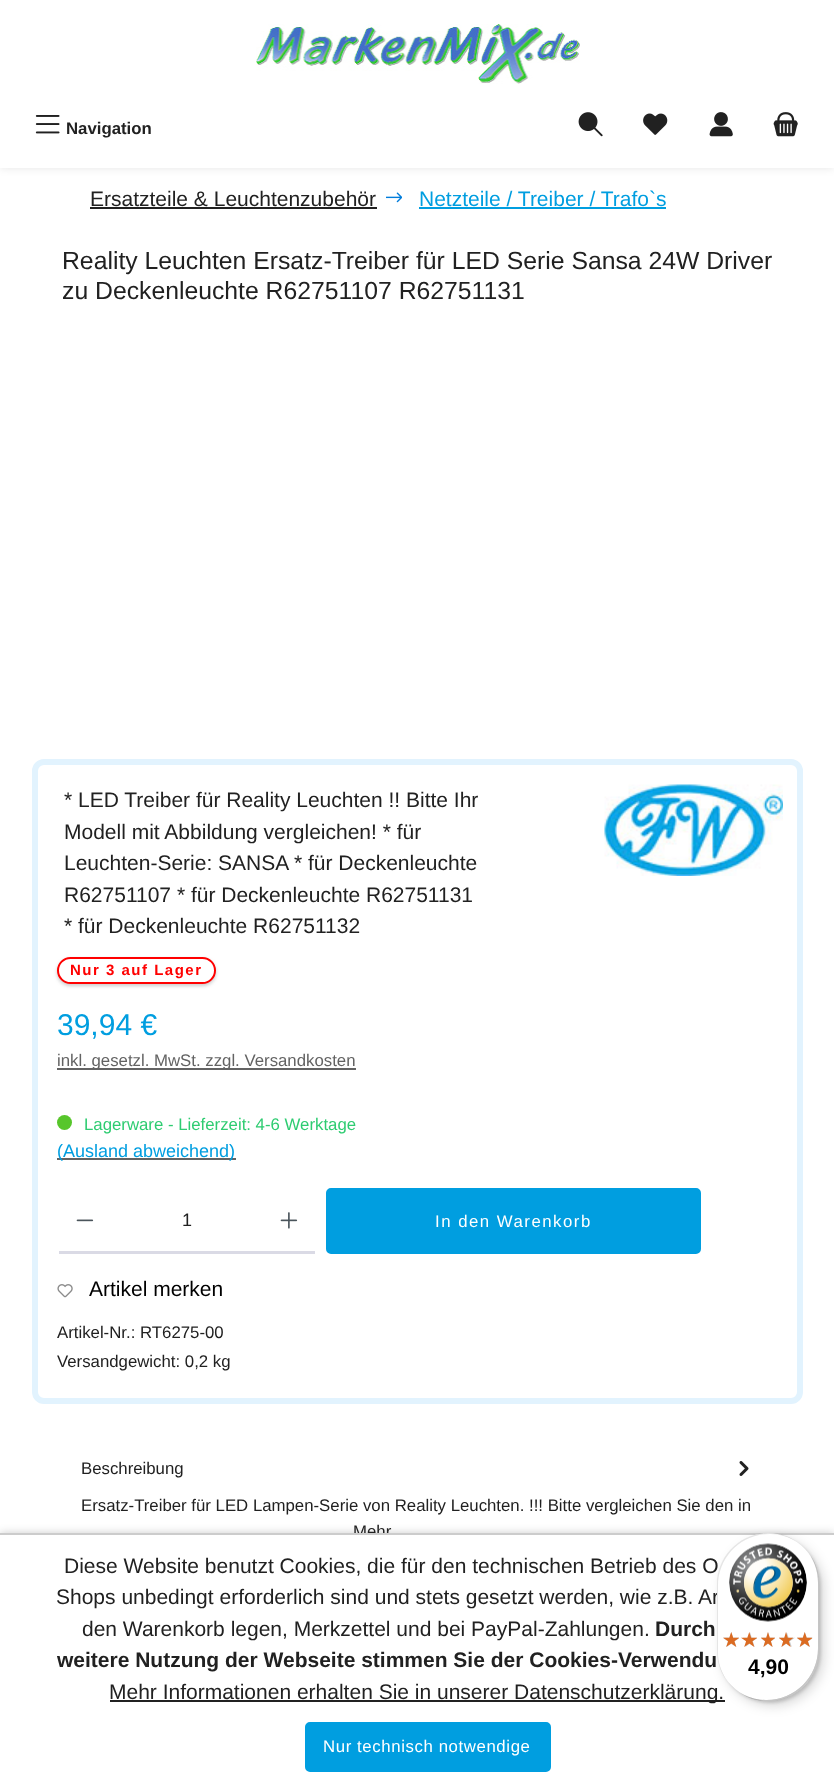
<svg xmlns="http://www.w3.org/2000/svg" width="834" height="1791">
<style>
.a{font:bold 16.8px Liberation Sans;fill:#212121}
.b{font:21px Liberation Sans;fill:#212121}
.c{font:21px Liberation Sans;fill:#009ee0}
.d{font:24.75px Liberation Sans;fill:#212121}
.e{font:bold 15px Liberation Sans;letter-spacing:1.5px;fill:#f00}
.f{font:30px Liberation Sans;fill:#009ee0}
.g{font:16.8px Liberation Sans;fill:#636363}
.h{font:16.8px Liberation Sans;fill:#2ecc71}
.i{font:18px Liberation Sans;fill:#009ee0}
.j{font:18px Liberation Sans;fill:#212121}
.k{font:16.8px Liberation Sans;letter-spacing:1.5px;fill:#fff}
.l{font:21px Liberation Sans;fill:#000}
.m{font:16.8px Liberation Sans;fill:#212121}
.n{font:bold 21px Liberation Sans;fill:#212121}
.o{font:16.8px Liberation Sans;letter-spacing:0.6px;fill:#fff}
.p{font:bold 21px Liberation Sans;fill:#000}
</style>
<rect width="100%" height="100%" fill="#fff"/>
<path fill="#0000001a" filter="blur(4px)" d="M0 0h834v168H0z"/>
<path fill="#fff" d="M0 0h834v168H0z"/>
<image href="1.png" x="256" y="24" width="324" height="60"/>
<image href="2.png" x="35" y="115" width="25" height="19"/>
<image href="3.png" x="578" y="112" width="25" height="25"/>
<image href="4.png" x="643" y="113" width="25" height="22"/>
<image href="5.png" x="709" y="112" width="24" height="25"/>
<image href="6.png" x="773" y="112" width="25" height="25"/>
<path fill="#212121" d="M90 207h287v2H90z"/>
<image href="7.png" x="386" y="192" width="16" height="11"/>
<path fill="#009ee0" d="M419 207h247v2H419z"/>
<rect fill="none" stroke="#e2f3fe" stroke-width="6" x="35" y="762" width="765" height="639" rx="9"/>
<image href="8.png" x="604" y="784" width="179" height="92"/>
<rect fill="#0000001a" filter="blur(1.5px)" x="57" y="959" width="159" height="27" rx="13.5"/>
<rect fill="#0000001a" filter="blur(2px)" x="57" y="959" width="159" height="27" rx="13.5"/>
<rect fill="#fff" stroke="#f00" stroke-width="2" x="58" y="958" width="157" height="25" rx="12.5"/>
<path fill="#636363" d="M57 1068h299v2H57z"/>
<circle fill="#57c62b" cx="64.5" cy="1122.5" r="7.5"/>
<path fill="#636363" d="M57 1158h179v2H57z"/>
<path fill="#dadae5" d="M111 1251h152v3H111z"/>
<path fill="#fff" d="M60 1188h53v66h-53c-1.5 0-3-1.5-3-3v-60c0-1.5 1.5-3 3-3z"/>
<path fill="#dadae5" d="M59 1251h54v3H59z"/>
<image href="9.png" x="76" y="1219" width="18" height="3"/>
<path fill="#fff" d="M261 1188h53c1.5 0 3 1.5 3 3v60c0 1.5-1.5 3-3 3h-53z"/>
<path fill="#dadae5" d="M261 1251h54v3H261z"/>
<image href="10.png" x="280" y="1212" width="18" height="17"/>
<rect fill="#009ee0" stroke="#009ee0" stroke-width="2" x="327" y="1189" width="373" height="64" rx="4"/>
<image href="11.png" x="57" y="1284" width="16" height="14"/>
<image href="12.png" x="739" y="1461" width="10" height="15"/>
<path fill="#00000033" filter="blur(4px)" d="M0 1533h834v258H0z"/>
<text class="a" x="66" y="134">Navigation</text>
<text class="b" x="90" y="206">Ersatzteile &amp; Leuchtenzubehör</text>
<text class="c" x="419" y="206">Netzteile / Treiber / Trafo`s</text>
<text class="d" x="62" y="269">Reality Leuchten Ersatz-Treiber für LED Serie Sansa 24W Driver</text>
<text class="d" x="62" y="299">zu Deckenleuchte R62751107 R62751131</text>
<text class="b" x="64" y="807">* LED Treiber für Reality Leuchten !! Bitte Ihr</text>
<text class="b" x="64" y="839">Modell mit Abbildung vergleichen! * für</text>
<text class="b" x="64" y="870">Leuchten-Serie: SANSA * für Deckenleuchte</text>
<text class="b" x="64" y="902">R62751107 * für Deckenleuchte R62751131</text>
<text class="b" x="64" y="933">* für Deckenleuchte R62751132</text>
<text class="e" x="70" y="975">Nur 3 auf Lager</text>
<text class="f" x="57" y="1035">39,94 €</text>
<text class="g" x="57" y="1066">inkl. gesetzl. MwSt. zzgl. Versandkosten</text>
<text class="h" x="84" y="1130">Lagerware - Lieferzeit: 4-6 Werktage</text>
<text class="i" x="57" y="1157">(Ausland abweichend)</text>
<text class="j" x="182" y="1226">1</text>
<text class="k" x="435" y="1227">In den Warenkorb</text>
<text class="l" x="89" y="1296">Artikel merken</text>
<text class="m" x="57" y="1338">Artikel-Nr.: RT6275-00</text>
<text class="m" x="57" y="1367">Versandgewicht: 0,2 kg</text>
<text class="m" x="81" y="1474">Beschreibung</text>
<text class="m" x="81" y="1511">Ersatz-Treiber für LED Lampen-Serie von Reality Leuchten. !!! Bitte vergleichen Sie den in</text>
<text class="m" x="353" y="1537">Mehr</text>
<path fill="#fff" d="M0 1535h834v256H0z"/>
<path fill="#ccc" d="M0 1533h834v2H0z"/>
<text class="b" x="64" y="1573">Diese Website benutzt Cookies, die für den technischen Betrieb des O</text>
<text class="b" x="56" y="1604">Shops unbedingt erforderlich sind und stets gesetzt werden, wie z.B. Ar</text>
<text class="b" x="82" y="1636">den Warenkorb legen, Merkzettel und bei PayPal-Zahlungen.</text>
<text class="n" x="655" y="1636">Durch</text>
<text class="n" x="57" y="1667">weitere Nutzung der Webseite stimmen Sie der Cookies-Verwendu</text>
<path fill="#212121" d="M110 1700h615v2H110z"/>
<text class="b" x="109" y="1699">Mehr Informationen erhalten Sie in unserer Datenschutzerklärung.</text>
<rect fill="#009ee0" stroke="#009ee0" stroke-width="2" x="306" y="1723" width="244" height="48" rx="4"/>
<text class="o" x="323" y="1752">Nur technisch notwendige</text>
<rect fill="#00000026" filter="blur(6px)" x="722" y="1538" width="102" height="168" rx="51"/>
<rect fill="#00000026" filter="blur(1.5px)" x="719" y="1535" width="102" height="168" rx="51"/>
<rect fill="#fff" x="717" y="1533" width="102" height="168" rx="51"/>
<path fill="#0000001a" d="M770 1534c10 0 19 3 27 8c-8-6-18-9-29-9c-28 0-51 23-51 51v66c0 11 3 21 9 29c-5-8-8-17-8-27v-66c0-29 23-52 52-52z"/>
<path fill="#00000033" d="M739 1692c8 6 18 9 29 9c28 0 51-23 51-51v-66c0-11-3-21-9-29c5 8 8 17 8 27v66c0 29-23 52-52 52c-10 0-19-3-27-8z"/>
<path fill="#32323233" d="M729 1683c10 11 24 18 39 18c28 0 51-23 51-51v-66c0-15-7-29-18-39c11 10 17 23 17 38v66c0 28-23 51-51 51c-15 0-28-6-38-17z"/>
<path fill="#ffffff4d" d="M729 1683c10 11 24 18 39 18c28 0 51-23 51-51v-66c0-15-7-29-18-39c11 10 17 23 17 38v66c0 28-23 51-51 51c-15 0-28-6-38-17z"/>
<image href="13.png" x="729" y="1543" width="78" height="79"/>
<image href="14.png" x="723" y="1632" width="16" height="15"/>
<image href="15.png" x="743" y="1632" width="14" height="15"/>
<image href="16.png" x="761" y="1632" width="14" height="15"/>
<image href="17.png" x="779" y="1632" width="16" height="15"/>
<image href="18.png" x="797" y="1632" width="16" height="15"/>
<image href="19.png" x="723" y="1632" width="16" height="15"/>
<image href="20.png" x="741" y="1632" width="16" height="15"/>
<image href="21.png" x="761" y="1632" width="14" height="15"/>
<image href="22.png" x="779" y="1632" width="14" height="15"/>
<image href="23.png" x="797" y="1632" width="15" height="15"/>
<text class="p" x="748" y="1674">4,90</text>
</svg>
